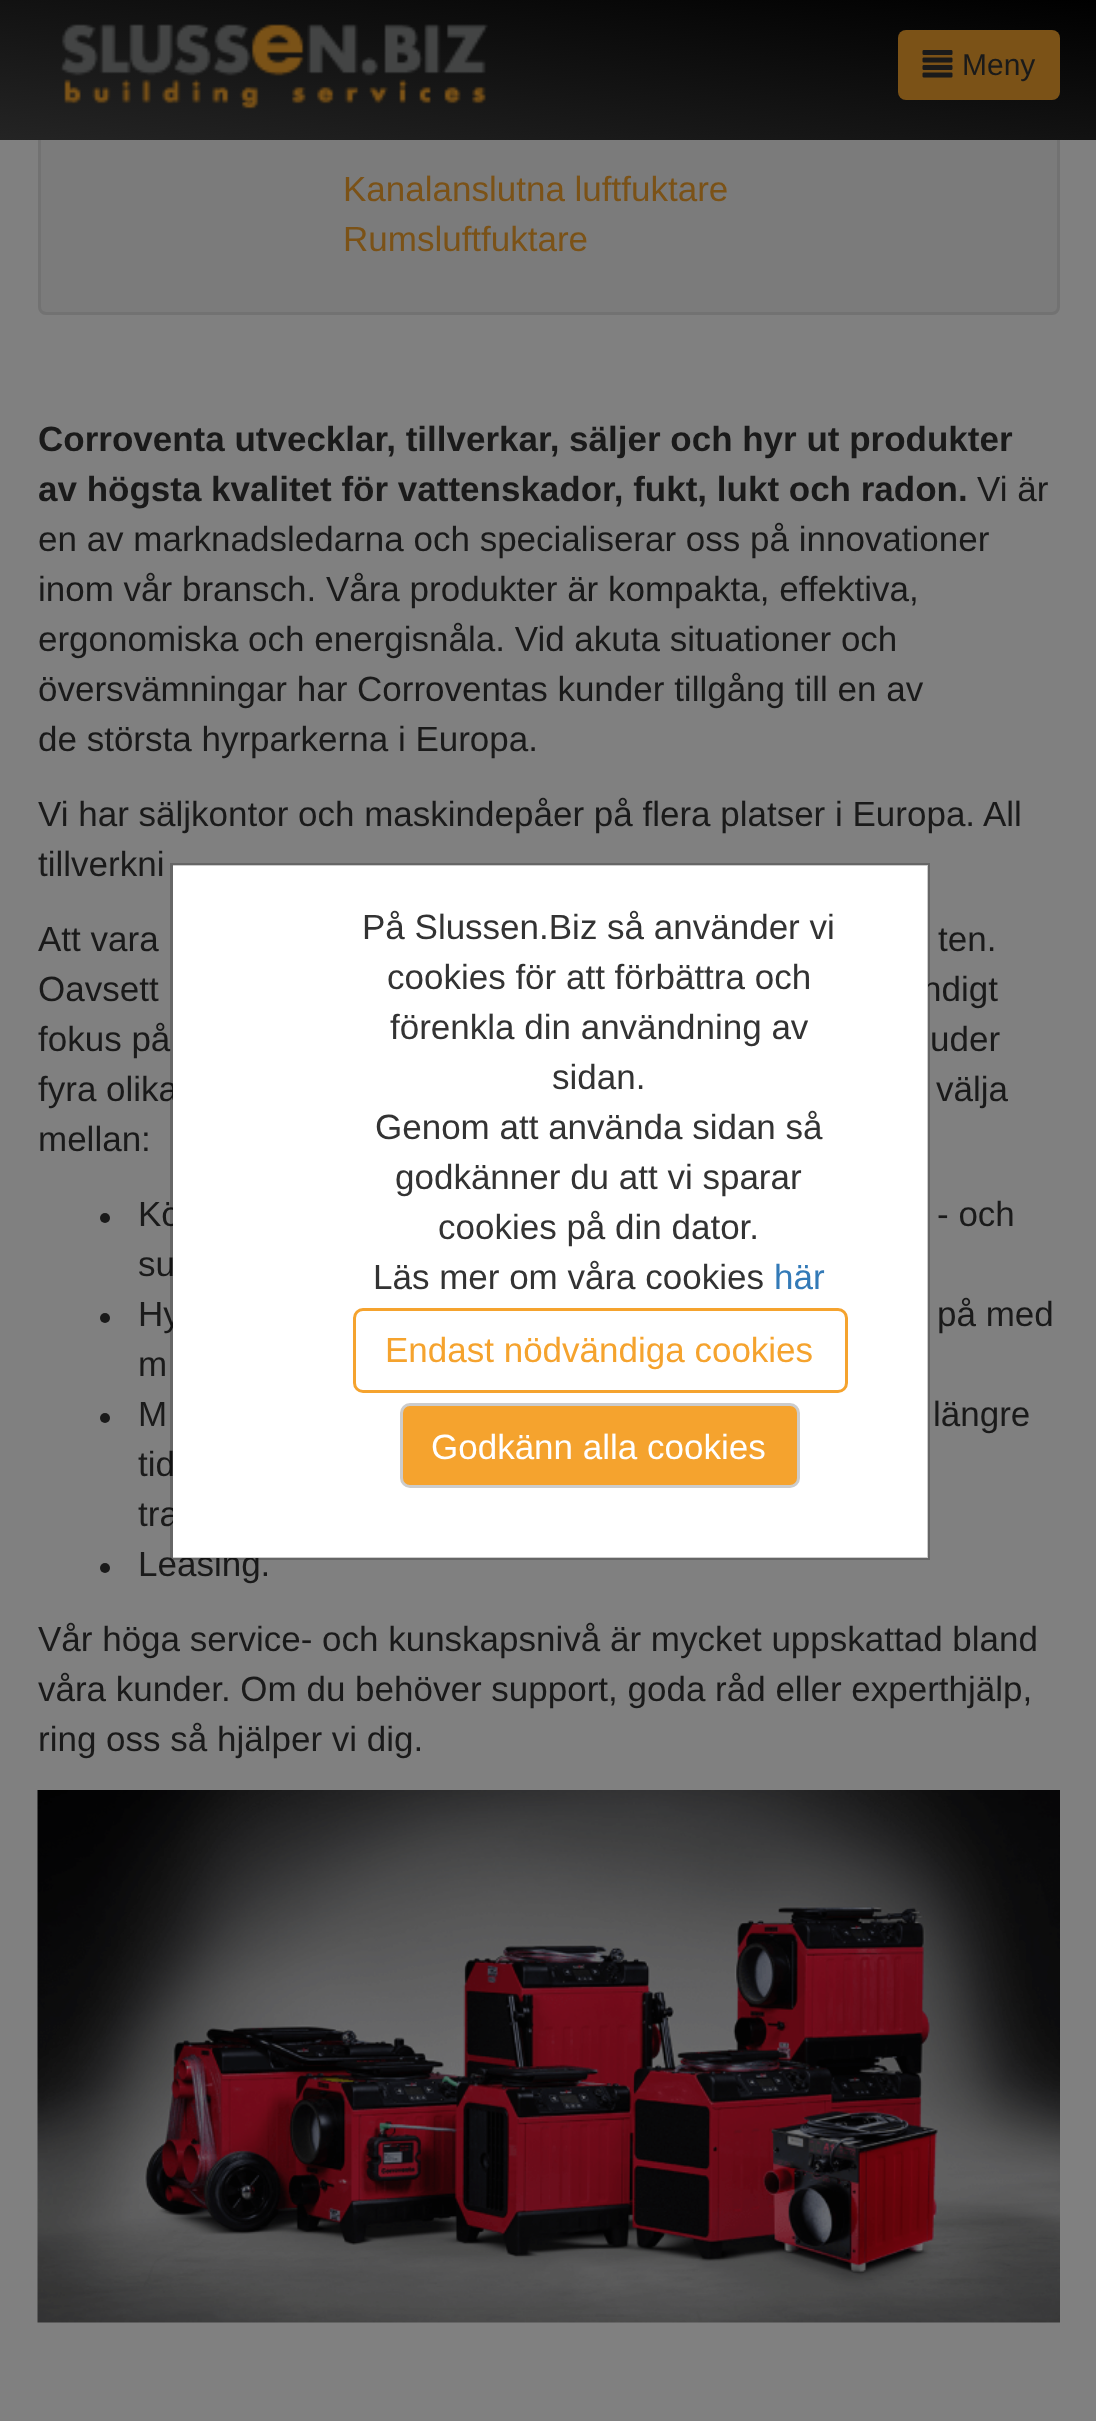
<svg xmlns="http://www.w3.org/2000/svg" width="1096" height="2421">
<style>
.a{font:30px Liberation Sans;fill:#1a1a1a}
.b{font:35px Liberation Sans;fill:#7b5217}
.c{font:bold 35px Liberation Sans;fill:#1a1a1a}
.d{font:35px Liberation Sans;fill:#1a1a1a}
.e{font:35px Liberation Sans;fill:#333}
.f{font:35px Liberation Sans;fill:#337ab7}
.g{font:35px Liberation Sans;fill:#f5a32e}
.h{font:35px Liberation Sans;fill:#fff}
</style>
<defs>
<linearGradient id="g1" gradientUnits="userSpaceOnUse" x1="531" y1="208" x2="566" y2="-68"><stop offset="0" stop-color="#242424"/><stop offset="1" stop-color="#000"/></linearGradient>
</defs>
<rect width="100%" height="100%" fill="#808080"/>
<rect fill="#7b7b7b" stroke="#727272" stroke-width="3" x="39.5" y="-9.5" width="1019" height="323" rx="6.5"/>
<path fill="url(#g1)" d="M0 0h1096v140H0z"/>
<image href="1.png" x="60" y="24" width="429" height="85"/>
<rect fill="#7b5217" x="898" y="30" width="162" height="70" rx="8"/>
<image href="2.png" x="922" y="50" width="31" height="28"/>
<circle fill="#1a1a1a" cx="105" cy="1218" r="5"/>
<circle fill="#1a1a1a" cx="105" cy="1318" r="5"/>
<circle fill="#1a1a1a" cx="105" cy="1418" r="5"/>
<circle fill="#1a1a1a" cx="105" cy="1568" r="5"/>
<image href="3.png" x="37" y="1790" width="1023" height="533"/>
<text class="a" x="962" y="75">Meny</text>
<text class="b" x="343" y="201">Kanalanslutna luftfuktare</text>
<text class="b" x="343" y="251">Rumsluftfuktare</text>
<text class="c" x="38" y="451">Corroventa utvecklar, tillverkar, säljer och hyr ut produkter</text>
<text class="c" x="38" y="501">av högsta kvalitet för vattenskador, fukt, lukt och radon.</text>
<text class="d" x="977" y="501">Vi är</text>
<text class="d" x="38" y="551">en av marknadsledarna och specialiserar oss på innovationer</text>
<text class="d" x="38" y="601">inom vår bransch. Våra produkter är kompakta, effektiva,</text>
<text class="d" x="38" y="651">ergonomiska och energisnåla. Vid akuta situationer och</text>
<text class="d" x="38" y="701">översvämningar har Corroventas kunder tillgång till en av</text>
<text class="d" x="38" y="751">de största hyrparkerna i Europa.</text>
<text class="d" x="38" y="826">Vi har säljkontor och maskindepåer på flera platser i Europa. All</text>
<text class="d" x="38" y="876">tillverkni</text>
<text class="d" x="38" y="951">Att vara</text>
<text class="d" x="938" y="951">ten.</text>
<text class="d" x="38" y="1001">Oavsett</text>
<text class="d" x="922" y="1001">ndigt</text>
<text class="d" x="38" y="1051">fokus på</text>
<text class="d" x="930" y="1051">uder</text>
<text class="d" x="38" y="1101">fyra olika</text>
<text class="d" x="936" y="1101">välja</text>
<text class="d" x="38" y="1151">mellan:</text>
<text class="d" x="138" y="1226">Kö</text>
<text class="d" x="937" y="1226">- och</text>
<text class="d" x="138" y="1276">su</text>
<text class="d" x="138" y="1326">Hy</text>
<text class="d" x="937" y="1326">på med</text>
<text class="d" x="138" y="1376">m</text>
<text class="d" x="138" y="1426">M</text>
<text class="d" x="933" y="1426">längre</text>
<text class="d" x="138" y="1476">tid</text>
<text class="d" x="138" y="1526">tra</text>
<text class="d" x="138" y="1576">Leasing.</text>
<text class="d" x="38" y="1651">Vår höga service- och kunskapsnivå är mycket uppskattad bland</text>
<text class="d" x="38" y="1701">våra kunder. Om du behöver support, goda råd eller experthjälp,</text>
<text class="d" x="38" y="1751">ring oss så hjälper vi dig.</text>
<path fill="#fff" d="M173 865h755v693H173z"/>
<path fill="none" stroke="#00000033" stroke-width="3" d="M171.5 864.5h757v694H171.5z"/>
<text class="e" x="362" y="939">På Slussen.Biz så använder vi</text>
<text class="e" x="387" y="989">cookies för att förbättra och</text>
<text class="e" x="390" y="1039">förenkla din användning av</text>
<text class="e" x="552" y="1089">sidan.</text>
<text class="e" x="375" y="1139">Genom att använda sidan så</text>
<text class="e" x="395" y="1189">godkänner du att vi sparar</text>
<text class="e" x="438" y="1239">cookies på din dator.</text>
<text class="e" x="373" y="1289">Läs mer om våra cookies</text>
<text class="f" x="774" y="1289">här</text>
<rect fill="none" stroke="#f5a32e" stroke-width="3" x="354.5" y="1309.5" width="492" height="82" rx="8.5"/>
<text class="g" x="385" y="1362">Endast nödvändiga cookies</text>
<rect fill="#f5a32e" stroke="#ccc" stroke-width="3" x="401.5" y="1404.5" width="397" height="82" rx="8.5"/>
<text class="h" x="431" y="1459">Godkänn alla cookies</text>
</svg>
